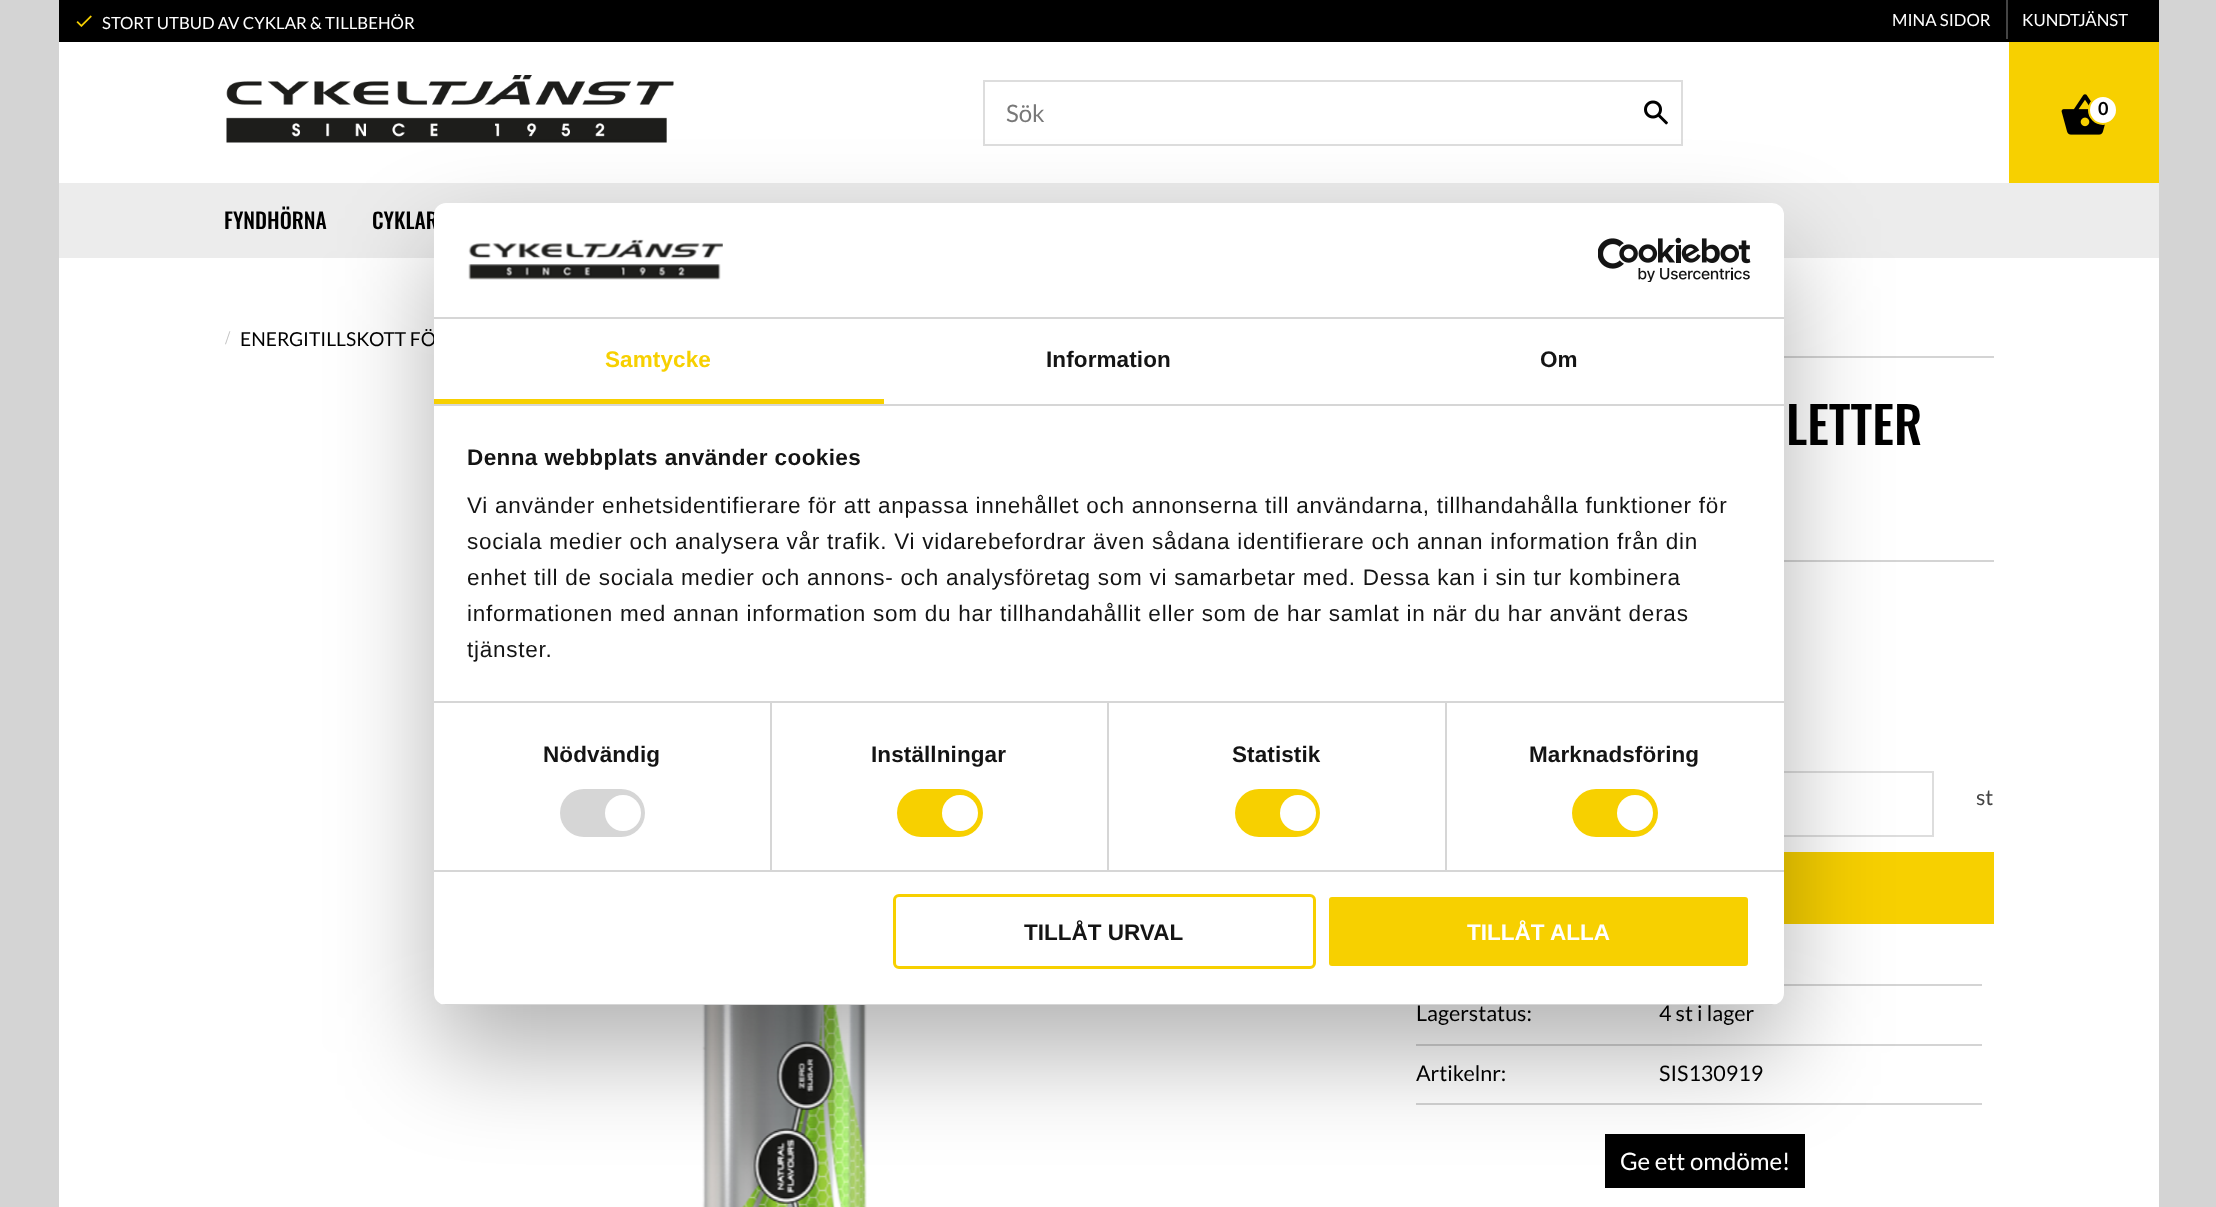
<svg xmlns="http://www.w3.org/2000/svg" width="2216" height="1207">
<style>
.a{font:16.75px Lato;fill:#fff}
.b{font:24px Lato;fill:#787878}
.c{font:bold 18px Lato;fill:#000}
.d{font:500 21.5px Oswald;fill:#000}
.e{font:19.25px Liberation Serif;fill:#c3c3c3}
.f{font:19.25px Lato;fill:#000}
.g{font:500 50.5px Oswald;fill:#000}
.h{font:21.5px Lato;fill:#444}
.i{font:21.5px Lato;fill:#000}
.j{font:24px Lato;fill:#fff}
.k{font:bold 22.5px Liberation Sans;letter-spacing:0.1px;fill:#f7d000}
.l{font:bold 22.5px Liberation Sans;letter-spacing:0.1px;fill:#141414}
.m{font:bold 22.5px Liberation Sans;letter-spacing:0.4px;fill:#141414}
.n{font:22.5px Liberation Sans;letter-spacing:0.75px;fill:#141414}
.o{font:bold 22.5px Liberation Sans;fill:#141414}
.p{font:bold 22.5px Liberation Sans;fill:#fff}
</style>
<defs>
<clipPath id="clip1"><rect x="434" y="203" width="1350" height="802" rx="12"/></clipPath>
</defs>
<rect width="100%" height="100%" fill="#d4d4d4"/>
<path fill="#fff" d="M59 42h2100v1165H59z"/>
<path fill="#000" d="M59 0h2100v42H59z"/>
<image href="1.png" x="76" y="15" width="16" height="12"/>
<path fill="#444" d="M2006 0h2v39H2006z"/>
<path fill="none" stroke="#ddd" stroke-width="2" d="M984 81h698v64H984z"/>
<image href="2.png" x="1644" y="100" width="24" height="25"/>
<path fill="#f7d000" d="M2009 42h150v141H2009z"/>
<image href="3.png" x="2061" y="94" width="44" height="41"/>
<circle fill="#fff" stroke="#f7d000" stroke-width="2" cx="2103" cy="110" r="14"/>
<image href="4.png" x="226" y="75" width="448" height="68"/>
<path fill="#ececec" d="M59 183h2100v75H59z"/>
<path fill="#d4d4d4" d="M1784 356h210v2H1784z"/>
<path fill="#d4d4d4" d="M1784 560h210v2H1784z"/>
<image href="5.png" x="685" y="1005" width="199" height="202"/>
<path fill="none" stroke="#ddd" stroke-width="2" d="M1417 772h516v64H1417z"/>
<path fill="#f7d000" d="M1784 852h210v72H1784z"/>
<path fill="#d4d4d4" d="M1416 1044h566v2H1416z"/>
<path fill="#d4d4d4" d="M1784 984h198v2H1784z"/>
<path fill="#d4d4d4" d="M1416 1103h566v2H1416z"/>
<path fill="#000" d="M1605 1134h200v54H1605z"/>
<rect fill="#0000004d" filter="blur(51px)" x="434" y="251" width="1350" height="802" rx="12"/>
<text class="a" x="102" y="29">STORT UTBUD AV CYKLAR &amp; TILLBEHÖR</text>
<text class="a" x="1892" y="26">MINA SIDOR</text>
<text class="a" x="2022" y="26">KUNDTJÄNST</text>
<text class="b" x="1006" y="122">Sök</text>
<text class="c" x="2098" y="115">0</text>
<text class="d" x="224" y="229">FYNDHÖRNA</text>
<text class="d" x="372" y="229">CYKLAR</text>
<text class="e" x="225" y="344">/</text>
<text class="f" x="240" y="346">ENERGITILLSKOTT FÖ</text>
<text class="g" x="1786" y="445">LETTER</text>
<text class="h" x="1976" y="805">st</text>
<text class="i" x="1416" y="1021">Lagerstatus:</text>
<text class="i" x="1659" y="1021">4 st i lager</text>
<text class="i" x="1416" y="1081">Artikelnr:</text>
<text class="i" x="1659" y="1081">SIS130919</text>
<text class="j" x="1620" y="1170">Ge ett omdöme!</text>
<rect fill="#fff" x="434" y="203" width="1350" height="802" rx="12"/>
<path fill="#d6d6d6" d="M434 317h1350v2H434z"/>
<image href="6.png" x="468" y="239" width="255" height="41"/>
<image href="7.png" x="1598" y="237" width="153" height="45"/>
<path fill="#d6d6d6" d="M434 404h1350v2H434z"/>
<path fill="#f7d000" d="M434 399h450v5H434z"/>
<text class="k" x="605" y="367">Samtycke</text>
<text class="l" x="1046" y="367">Information</text>
<text class="l" x="1540" y="367">Om</text>
<text class="m" x="467" y="465">Denna webbplats använder cookies</text>
<text class="n" x="467" y="513">Vi använder enhetsidentifierare för att anpassa innehållet och annonserna till användarna, tillhandahålla funktioner för</text>
<text class="n" x="467" y="549">sociala medier och analysera vår trafik. Vi vidarebefordrar även sådana identifierare och annan information från din</text>
<text class="n" x="467" y="585">enhet till de sociala medier och annons- och analysföretag som vi samarbetar med. Dessa kan i sin tur kombinera</text>
<text class="n" x="467" y="621">informationen med annan information som du har tillhandahållit eller som de har samlat in när du har använt deras</text>
<text class="n" x="467" y="657">tjänster.</text>
<path fill="#d6d6d6" d="M434 870h1350v2H434z"/>
<path fill="#d6d6d6" d="M770 702h2v168H770z"/>
<text class="l" x="543" y="762">Nödvändig</text>
<rect fill="#d6d6d6" x="560" y="789" width="85" height="48" rx="24"/>
<circle fill="#fff" cx="623" cy="813" r="18"/>
<path fill="#d6d6d6" d="M1107 702h2v168H1107z"/>
<text class="l" x="871" y="762">Inställningar</text>
<rect fill="#f7d000" x="897" y="789" width="86" height="48" rx="24"/>
<circle fill="#fff" cx="960" cy="813" r="18"/>
<path fill="#d6d6d6" d="M1445 702h2v168H1445z"/>
<path fill="#d6d6d6" d="M434 701h1350v2H434z"/>
<text class="l" x="1232" y="762">Statistik</text>
<rect fill="#f7d000" x="1235" y="789" width="85" height="48" rx="24"/>
<circle fill="#fff" cx="1298" cy="813" r="18"/>
<text class="l" x="1529" y="762">Marknadsföring</text>
<rect fill="#f7d000" x="1572" y="789" width="86" height="48" rx="24"/>
<circle fill="#fff" cx="1635" cy="813" r="18"/>
<g clip-path="url(#clip1)">
<path fill="#d6d6d6" d="M434 1004h1350v1H434z"/>
</g>
<rect fill="none" stroke="#f7d000" stroke-width="3" x="894.5" y="895.5" width="420" height="72" rx="4.5"/>
<text class="o" x="1024" y="940">TILLÅT URVAL</text>
<rect fill="#f7d000" stroke="#fff" stroke-width="3" x="1327.5" y="895.5" width="422" height="72" rx="4.5"/>
<text class="p" x="1467" y="940">TILLÅT ALLA</text>
</svg>
